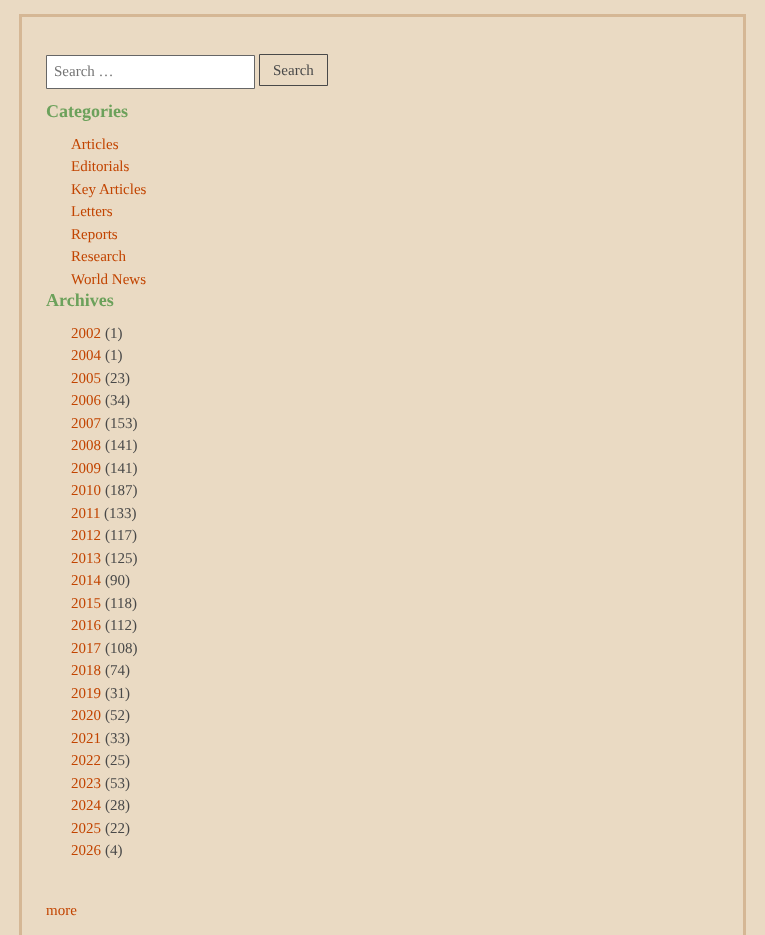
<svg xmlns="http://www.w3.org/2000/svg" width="765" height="935">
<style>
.a{font:15px Liberation Serif;fill:#757575}
.b{font:15px Liberation Serif;fill:#494949}
.c{font:bold 18px Liberation Serif;fill:#6ca15b}
.d{font:15px Liberation Serif;fill:#c24400}
</style>
<rect width="100%" height="100%" fill="#eadac3"/>
<path fill="none" stroke="#d5b795" stroke-width="3" d="M20.5 15.5h724v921H20.5z"/>
<path fill="#fff" stroke="#666" d="M46.5 55.5h208v33H46.5z"/>
<path fill="none" stroke="#494949" d="M259.5 54.5h68v31H259.5z"/>
<text class="a" x="54" y="76">Search …</text>
<text class="b" x="273" y="75">Search</text>
<text class="c" x="46" y="117">Categories</text>
<text class="d" x="71" y="149">Articles</text>
<text class="d" x="71" y="171">Editorials</text>
<text class="d" x="71" y="194">Key Articles</text>
<text class="d" x="71" y="216">Letters</text>
<text class="d" x="71" y="239">Reports</text>
<text class="d" x="71" y="261">Research</text>
<text class="d" x="71" y="284">World News</text>
<text class="c" x="46" y="306">Archives</text>
<text class="d" x="71" y="338">2002</text>
<text class="b" x="105" y="338">(1)</text>
<text class="d" x="71" y="360">2004</text>
<text class="b" x="105" y="360">(1)</text>
<text class="d" x="71" y="383">2005</text>
<text class="b" x="105" y="383">(23)</text>
<text class="d" x="71" y="405">2006</text>
<text class="b" x="105" y="405">(34)</text>
<text class="d" x="71" y="428">2007</text>
<text class="b" x="105" y="428">(153)</text>
<text class="d" x="71" y="450">2008</text>
<text class="b" x="105" y="450">(141)</text>
<text class="d" x="71" y="473">2009</text>
<text class="b" x="105" y="473">(141)</text>
<text class="d" x="71" y="495">2010</text>
<text class="b" x="105" y="495">(187)</text>
<text class="d" x="71" y="518">2011</text>
<text class="b" x="104" y="518">(133)</text>
<text class="d" x="71" y="540">2012</text>
<text class="b" x="105" y="540">(117)</text>
<text class="d" x="71" y="563">2013</text>
<text class="b" x="105" y="563">(125)</text>
<text class="d" x="71" y="585">2014</text>
<text class="b" x="105" y="585">(90)</text>
<text class="d" x="71" y="608">2015</text>
<text class="b" x="105" y="608">(118)</text>
<text class="d" x="71" y="630">2016</text>
<text class="b" x="105" y="630">(112)</text>
<text class="d" x="71" y="653">2017</text>
<text class="b" x="105" y="653">(108)</text>
<text class="d" x="71" y="675">2018</text>
<text class="b" x="105" y="675">(74)</text>
<text class="d" x="71" y="698">2019</text>
<text class="b" x="105" y="698">(31)</text>
<text class="d" x="71" y="720">2020</text>
<text class="b" x="105" y="720">(52)</text>
<text class="d" x="71" y="743">2021</text>
<text class="b" x="105" y="743">(33)</text>
<text class="d" x="71" y="765">2022</text>
<text class="b" x="105" y="765">(25)</text>
<text class="d" x="71" y="788">2023</text>
<text class="b" x="105" y="788">(53)</text>
<text class="d" x="71" y="810">2024</text>
<text class="b" x="105" y="810">(28)</text>
<text class="d" x="71" y="833">2025</text>
<text class="b" x="105" y="833">(22)</text>
<text class="d" x="71" y="855">2026</text>
<text class="b" x="105" y="855">(4)</text>
<text class="d" x="46" y="915">more</text>
</svg>
